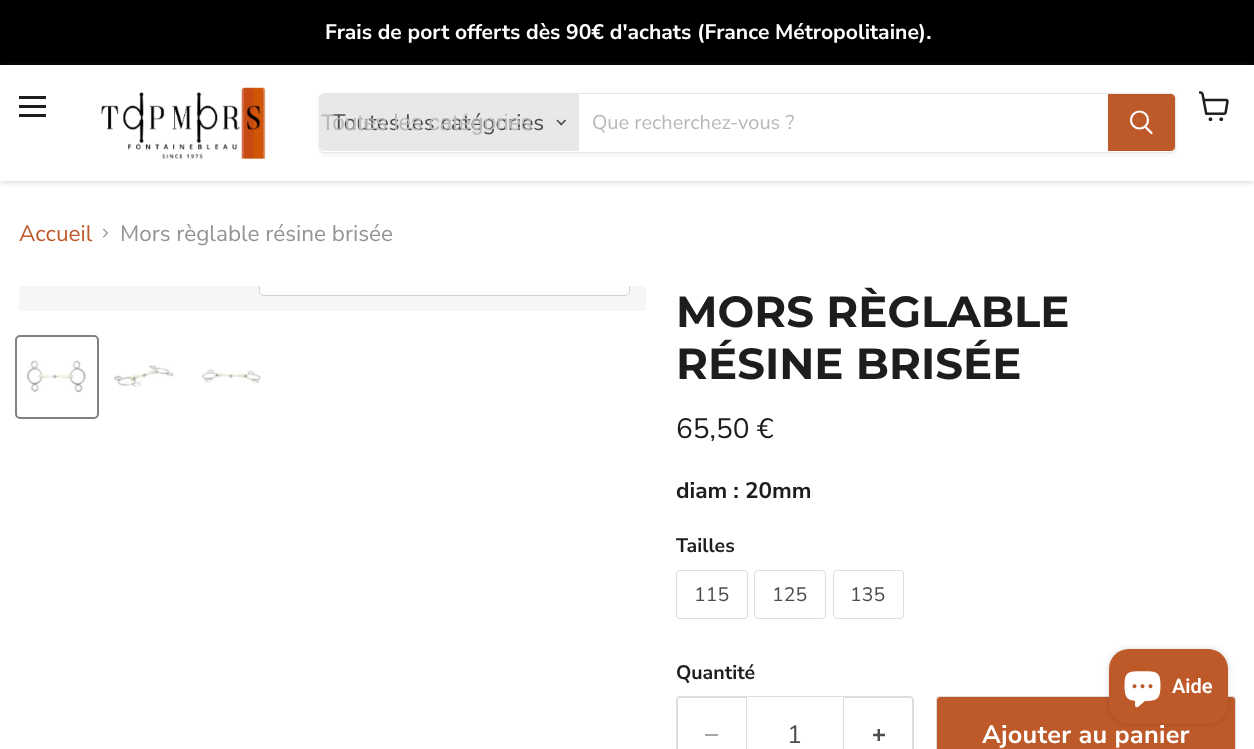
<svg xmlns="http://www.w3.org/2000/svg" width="1254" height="749">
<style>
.a{font:bold 21.1px Nunito Sans;fill:#fff}
.b{font:200 22.5px Nunito Sans;fill:#4d4d4d}
.c{font:22.5px Liberation Sans;fill:#b8b8b8}
.d{font:200 20px Nunito Sans;fill:#b8b8b8}
.e{font:200 22.5px Nunito Sans;fill:#be592a}
.f{font:200 22.5px Nunito Sans;fill:#949494}
.g{font:bold 43.5px Montserrat;fill:#1d1d1d}
.h{font:200 28px Nunito Sans;fill:#1d1d1d}
.i{font:bold 22.5px Nunito Sans;fill:#1d1d1d}
.j{font:bold 19.5px Nunito Sans;fill:#1d1d1d}
.k{font:200 19.5px Nunito Sans;fill:#4d4d4d}
.l{font:200 25.25px Nunito Sans;fill:#4d4d4d}
.m{font:bold 25.25px Nunito Sans;letter-spacing:0.25px;fill:#fff}
.n{font:600 20px Roboto;fill:#fff}
</style>
<defs>
<clipPath id="clip1"><path d="M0 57h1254v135h-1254zm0 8h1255v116h-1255z" clip-rule="evenodd"/></clipPath>
<clipPath id="clip2"><path d="M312 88h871v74h-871zm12 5h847c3 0 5 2 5 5v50c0 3-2 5-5 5h-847c-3 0-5-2-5-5v-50c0-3 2-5 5-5z" clip-rule="evenodd"/></clipPath>
<clipPath id="clip3"><path d="M19 286h627v25H19z"/></clipPath>
</defs>
<rect width="100%" height="100%" fill="#fff"/>
<path fill="#000" d="M0 0h1254v65H0z"/>
<g clip-path="url(#clip1)">
<path fill="#80808040" filter="blur(2.5px)" d="M0 66h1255v117H0z"/>
</g>
<path fill="#1d1d1d" d="M19 96h27v3H19z"/>
<path fill="#1d1d1d" d="M19 105h27v3H19z"/>
<path fill="#1d1d1d" d="M19 114h27v3H19z"/>
<image href="1.png" x="1199" y="91" width="30" height="30"/>
<image href="2.png" x="101" y="87" width="165" height="72"/>
<g clip-path="url(#clip2)">
<rect fill="#8080801c" filter="blur(2px)" x="319" y="95" width="857" height="60" rx="5"/>
</g>
<rect fill="none" stroke="#80808033" x="319.5" y="93.5" width="856" height="59" rx="4.5"/>
<path fill="#e8e8e8" d="M324 94h255v57h-255c-2 0-4-2-4-4v-49c0-2 2-4 4-4z"/>
<image href="3.png" x="556" y="119" width="10" height="7"/>
<path fill="#be592a" stroke="#be592a" d="M1108.5 94.5h62.5c2 0 3.5 1.5 3.5 3.5v49c0 2-1.5 3.5-3.5 3.5h-62.5z"/>
<path fill="none" stroke="#fff" stroke-width="2.2" stroke-linecap="round" d="M1151.5 133l-6-6"/>
<circle fill="none" stroke="#fff" stroke-width="2.2" cx="1139.5" cy="120" r="8.5"/>
<image href="4.png" x="103" y="228" width="6" height="10"/>
<path fill="#f6f6f6" d="M19 286h627v25H19z"/>
<g clip-path="url(#clip3)">
<rect fill="none" stroke="#d1d1d1" x="259.5" y="256.5" width="370" height="39" rx="4.5"/>
</g>
<path fill="#ffffffe6" d="M260 286h369v5c0 2-2 4-4 4h-361c-2 0-4-2-4-4z"/>
<rect fill="none" stroke="#818181" stroke-width="2" x="16" y="336" width="82" height="82" rx="4"/>
<image href="5.png" x="26" y="360" width="60" height="33"/>
<image href="6.png" x="114" y="365" width="60" height="22"/>
<image href="7.png" x="201" y="369" width="60" height="15"/>
<rect fill="none" stroke="#ddd" x="676.5" y="570.5" width="71" height="48" rx="3.5"/>
<rect fill="none" stroke="#ddd" x="754.5" y="570.5" width="71" height="48" rx="3.5"/>
<rect fill="none" stroke="#ddd" x="833.5" y="570.5" width="70" height="48" rx="3.5"/>
<path fill="#ddd" fill-rule="evenodd" d="M680 696h66v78h-66c-2 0-4-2-4-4v-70c0-2 2-4 4-4zm0 2h66v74h-66c-1 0-2-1-2-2v-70c0-1 1-2 2-2z"/>
<path fill="#a6a6a6" d="M705 734h13v2H705z"/>
<path fill="none" stroke="#ddd" d="M746.5 696.5h97v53H746.5z"/>
<path fill="#ddd" fill-rule="evenodd" d="M844 696h66c2 0 4 2 4 4v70c0 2-2 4-4 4h-66zm0 2h66c1 0 2 1 2 2v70c0 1-1 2-2 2h-66z"/>
<image href="8.png" x="873" y="729" width="12" height="12"/>
<rect fill="#be592a" stroke="#ddd" x="936.5" y="696.5" width="299" height="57" rx="3.5"/>
<rect fill="#00000026" filter="blur(3px)" x="1109" y="649" width="119" height="75" rx="20"/>
<rect fill="#be592a" x="1109" y="649" width="119" height="75" rx="20"/>
<image href="9.png" x="1124" y="671" width="37" height="37"/>
<text class="a" x="325" y="39">Frais de port offerts dès 90€ d'achats (France Métropolitaine).</text>
<text class="b" x="332" y="130">Toutes les catégories</text>
<text class="c" x="321" y="130">Toutes les catégories</text>
<text class="d" x="592" y="129">Que recherchez-vous ?</text>
<text class="e" x="19" y="241">Accueil</text>
<text class="f" x="120" y="241">Mors règlable résine brisée</text>
<text class="g" x="676" y="327">MORS RÈGLABLE</text>
<text class="g" x="676" y="379">RÉSINE BRISÉE</text>
<text class="h" x="676" y="438">65,50 €</text>
<text class="i" x="676" y="498">diam : 20mm</text>
<text class="j" x="676" y="552">Tailles</text>
<text class="k" x="694" y="601">115</text>
<text class="k" x="772" y="601">125</text>
<text class="k" x="850" y="601">135</text>
<text class="j" x="676" y="679">Quantité</text>
<text class="l" x="787" y="743">1</text>
<text class="m" x="982" y="743">Ajouter au panier</text>
<text class="n" x="1172" y="693">Aide</text>
</svg>
